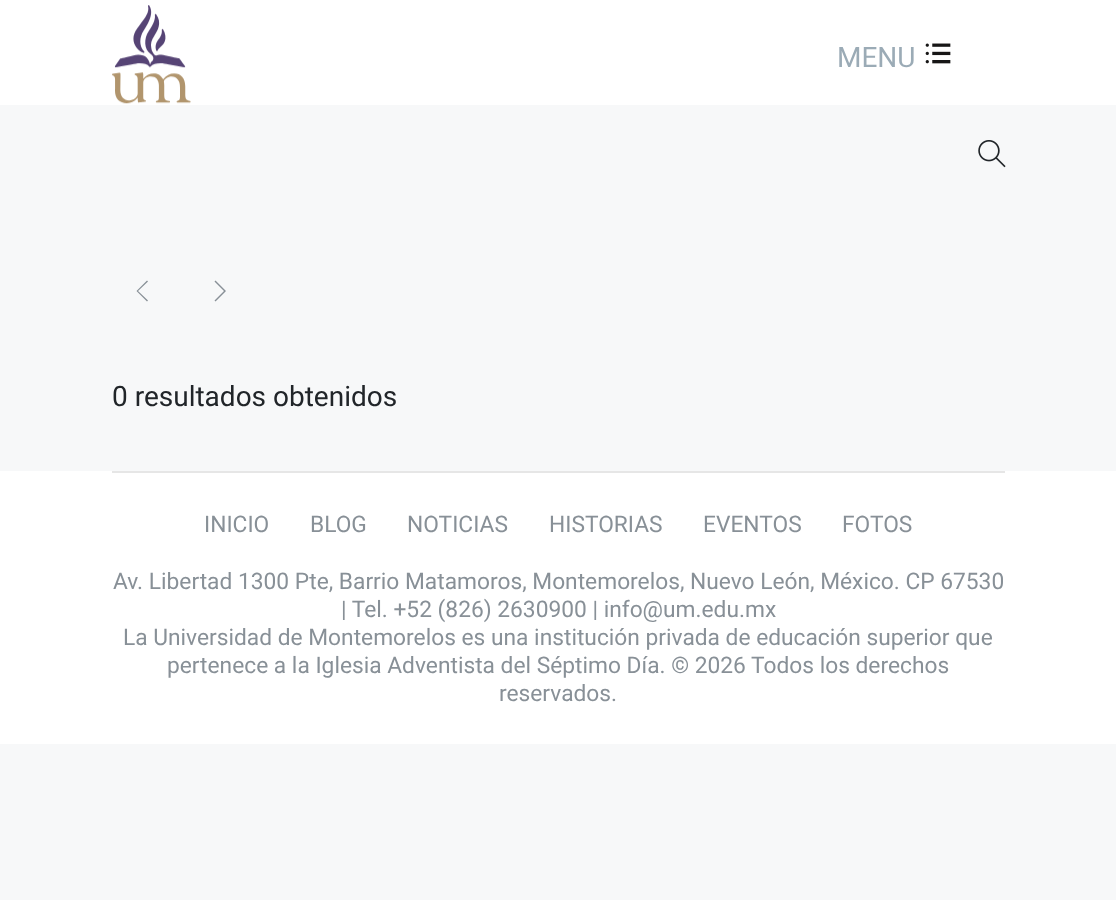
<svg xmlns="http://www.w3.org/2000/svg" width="1116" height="900">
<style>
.a{font:28px Roboto;fill:#9babb6}
.b{font:28px Roboto;fill:#212529}
.c{font:22.75px Roboto;fill:#889097}
</style>
<rect width="100%" height="100%" fill="#f7f8f9"/>
<path fill="#fff" d="M0 0h1116v105H0z"/>
<image href="1.png" x="112" y="5" width="79" height="99"/>
<image href="2.png" x="978" y="140" width="28" height="28"/>
<image href="3.png" x="925" y="43" width="26" height="21"/>
<path fill="#889097" d="M138 291l10 9.5l-1 1l-10.5-10.5l10.5-10.5l1 1z"/>
<path fill="#889097" d="M226 291l-10.5 10.5l-1-1l9.5-9.5l-9.5-9.5l1-1z"/>
<path fill="#fff" d="M0 471h1116v273H0z"/>
<path fill="#e6e6e6" d="M112 471h893v2H112z"/>
<text class="a" x="837" y="67">MENU</text>
<text class="b" x="112" y="406">0 resultados obtenidos</text>
<text class="c" x="204" y="532">INICIO</text>
<text class="c" x="310" y="532">BLOG</text>
<text class="c" x="407" y="532">NOTICIAS</text>
<text class="c" x="549" y="532">HISTORIAS</text>
<text class="c" x="703" y="532">EVENTOS</text>
<text class="c" x="842" y="532">FOTOS</text>
<text class="c" x="113" y="589">Av. Libertad 1300 Pte, Barrio Matamoros, Montemorelos, Nuevo León, México. CP 67530</text>
<text class="c" x="341" y="617">| Tel. +52 (826) 2630900 | info@um.edu.mx</text>
<text class="c" x="123" y="645">La Universidad de Montemorelos es una institución privada de educación superior que</text>
<text class="c" x="167" y="673">pertenece a la Iglesia Adventista del Séptimo Día. © 2026 Todos los derechos</text>
<text class="c" x="499" y="701">reservados.</text>
</svg>
